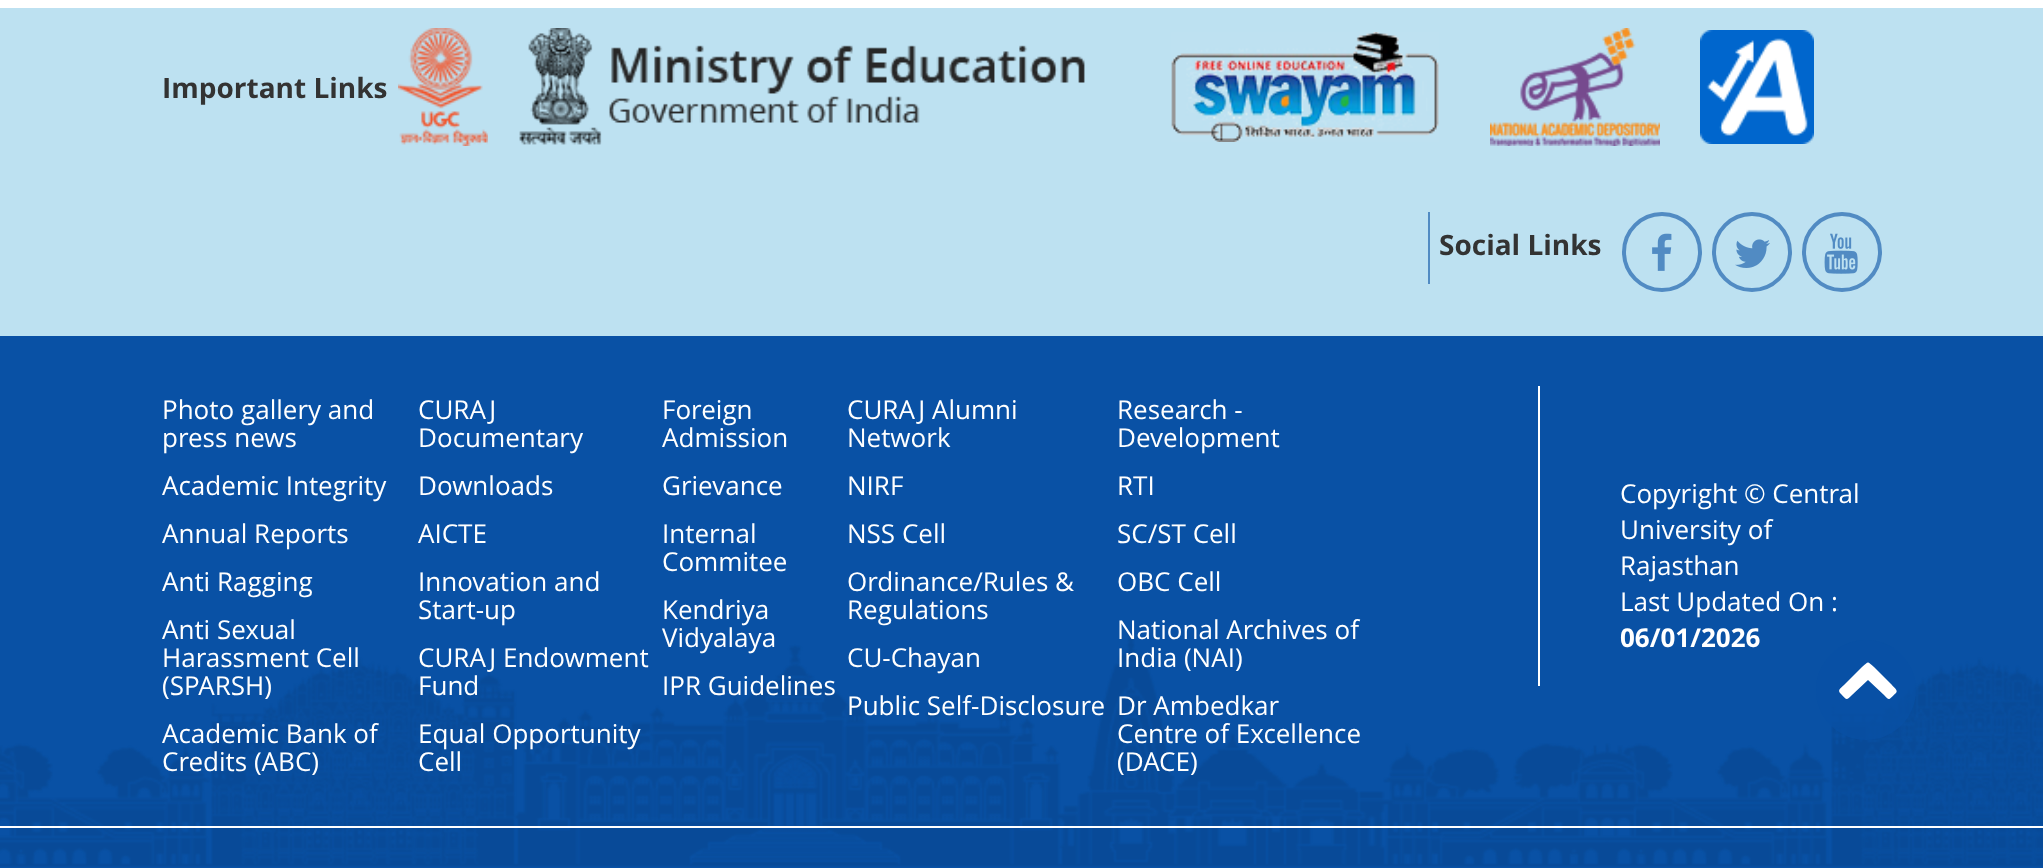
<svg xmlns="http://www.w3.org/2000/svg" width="2043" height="868">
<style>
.a{font:bold 28px Open Sans;fill:#333}
.b{font:26px Open Sans;fill:#fff}
.c{font:26px 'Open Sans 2';fill:#fff}
.d{font:bold 26px 'Open Sans 2';fill:#fff}
</style>
<rect width="100%" height="100%" fill="#fff"/>
<path fill="#bde1f1" d="M0 8h2043v328H0z"/>
<image href="1.png" x="398" y="28" width="90" height="118"/>
<image href="2.png" x="519" y="28" width="566" height="117"/>
<image href="3.png" x="1171" y="32" width="268" height="110"/>
<image href="4.png" x="1490" y="28" width="170" height="118"/>
<image href="5.png" x="1700" y="30" width="114" height="114"/>
<path fill="#518bc3" d="M1428 212h2v72H1428z"/>
<circle fill="none" stroke="#518bc3" stroke-width="4" cx="1662" cy="252" r="38"/>
<image href="6.png" x="1652" y="233" width="20" height="38"/>
<circle fill="none" stroke="#518bc3" stroke-width="4" cx="1752" cy="252" r="38"/>
<image href="7.png" x="1735" y="239" width="35" height="29"/>
<circle fill="none" stroke="#518bc3" stroke-width="4" cx="1842" cy="252" r="38"/>
<image href="8.png" x="1824" y="233" width="34" height="41"/>
<path fill="#0951a5" d="M0 336h2043v532H0z"/>
<image href="9.png" x="0" y="633" width="2043" height="234"/>
<path fill="#fff" d="M1538 386h2v300H1538z"/>
<path fill="#fff" d="M0 826h2043v2H0z"/>
<circle fill="#0951a5b8" cx="1866" cy="690" r="50"/>
<path fill="#fff" d="M1896 693c-7 6-6 9-12 2l-16-15l-16 15c-6 6-5 5-11-1c-4-4-1-5 3-9l18-18c7-6 5-6 12 0l18 18c0 1 7 5 4 8z"/>
<text class="a" x="162" y="98">Important Links</text>
<text class="a" x="1439" y="255">Social Links</text>
<text class="b" x="162" y="419">Photo gallery and</text>
<text class="b" x="162" y="447">press news</text>
<text class="b" x="162" y="495">Academic Integrity</text>
<text class="b" x="162" y="543">Annual Reports</text>
<text class="b" x="162" y="591">Anti Ragging</text>
<text class="b" x="162" y="639">Anti Sexual</text>
<text class="b" x="162" y="667">Harassment Cell</text>
<text class="b" x="162" y="695">(SPARSH)</text>
<text class="b" x="162" y="743">Academic Bank of</text>
<text class="b" x="162" y="771">Credits (ABC)</text>
<text class="b" x="418" y="419">CURAJ</text>
<text class="b" x="418" y="447">Documentary</text>
<text class="b" x="418" y="495">Downloads</text>
<text class="b" x="418" y="543">AICTE</text>
<text class="b" x="418" y="591">Innovation and</text>
<text class="b" x="418" y="619">Start-up</text>
<text class="b" x="418" y="667">CURAJ Endowment</text>
<text class="b" x="418" y="695">Fund</text>
<text class="b" x="418" y="743">Equal Opportunity</text>
<text class="b" x="418" y="771">Cell</text>
<text class="b" x="662" y="419">Foreign</text>
<text class="b" x="662" y="447">Admission</text>
<text class="b" x="662" y="495">Grievance</text>
<text class="b" x="662" y="543">Internal</text>
<text class="b" x="662" y="571">Commitee</text>
<text class="b" x="662" y="619">Kendriya</text>
<text class="b" x="662" y="647">Vidyalaya</text>
<text class="b" x="662" y="695">IPR Guidelines</text>
<text class="b" x="847" y="419">CURAJ Alumni</text>
<text class="b" x="847" y="447">Network</text>
<text class="b" x="847" y="495">NIRF</text>
<text class="b" x="847" y="543">NSS Cell</text>
<text class="b" x="847" y="591">Ordinance/Rules &amp;</text>
<text class="b" x="847" y="619">Regulations</text>
<text class="b" x="847" y="667">CU-Chayan</text>
<text class="b" x="847" y="715">Public Self-Disclosure</text>
<text class="b" x="1117" y="419">Research -</text>
<text class="b" x="1117" y="447">Development</text>
<text class="b" x="1117" y="495">RTI</text>
<text class="b" x="1117" y="543">SC/ST Cell</text>
<text class="b" x="1117" y="591">OBC Cell</text>
<text class="b" x="1117" y="639">National Archives of</text>
<text class="b" x="1117" y="667">India (NAI)</text>
<text class="b" x="1117" y="715">Dr Ambedkar</text>
<text class="b" x="1117" y="743">Centre of Excellence</text>
<text class="b" x="1117" y="771">(DACE)</text>
<text class="c" x="1620" y="503">Copyright © Central</text>
<text class="c" x="1620" y="539">University of</text>
<text class="c" x="1620" y="575">Rajasthan</text>
<text class="c" x="1620" y="611">Last Updated On :</text>
<text class="d" x="1620" y="647">06/01/2026</text>
</svg>
